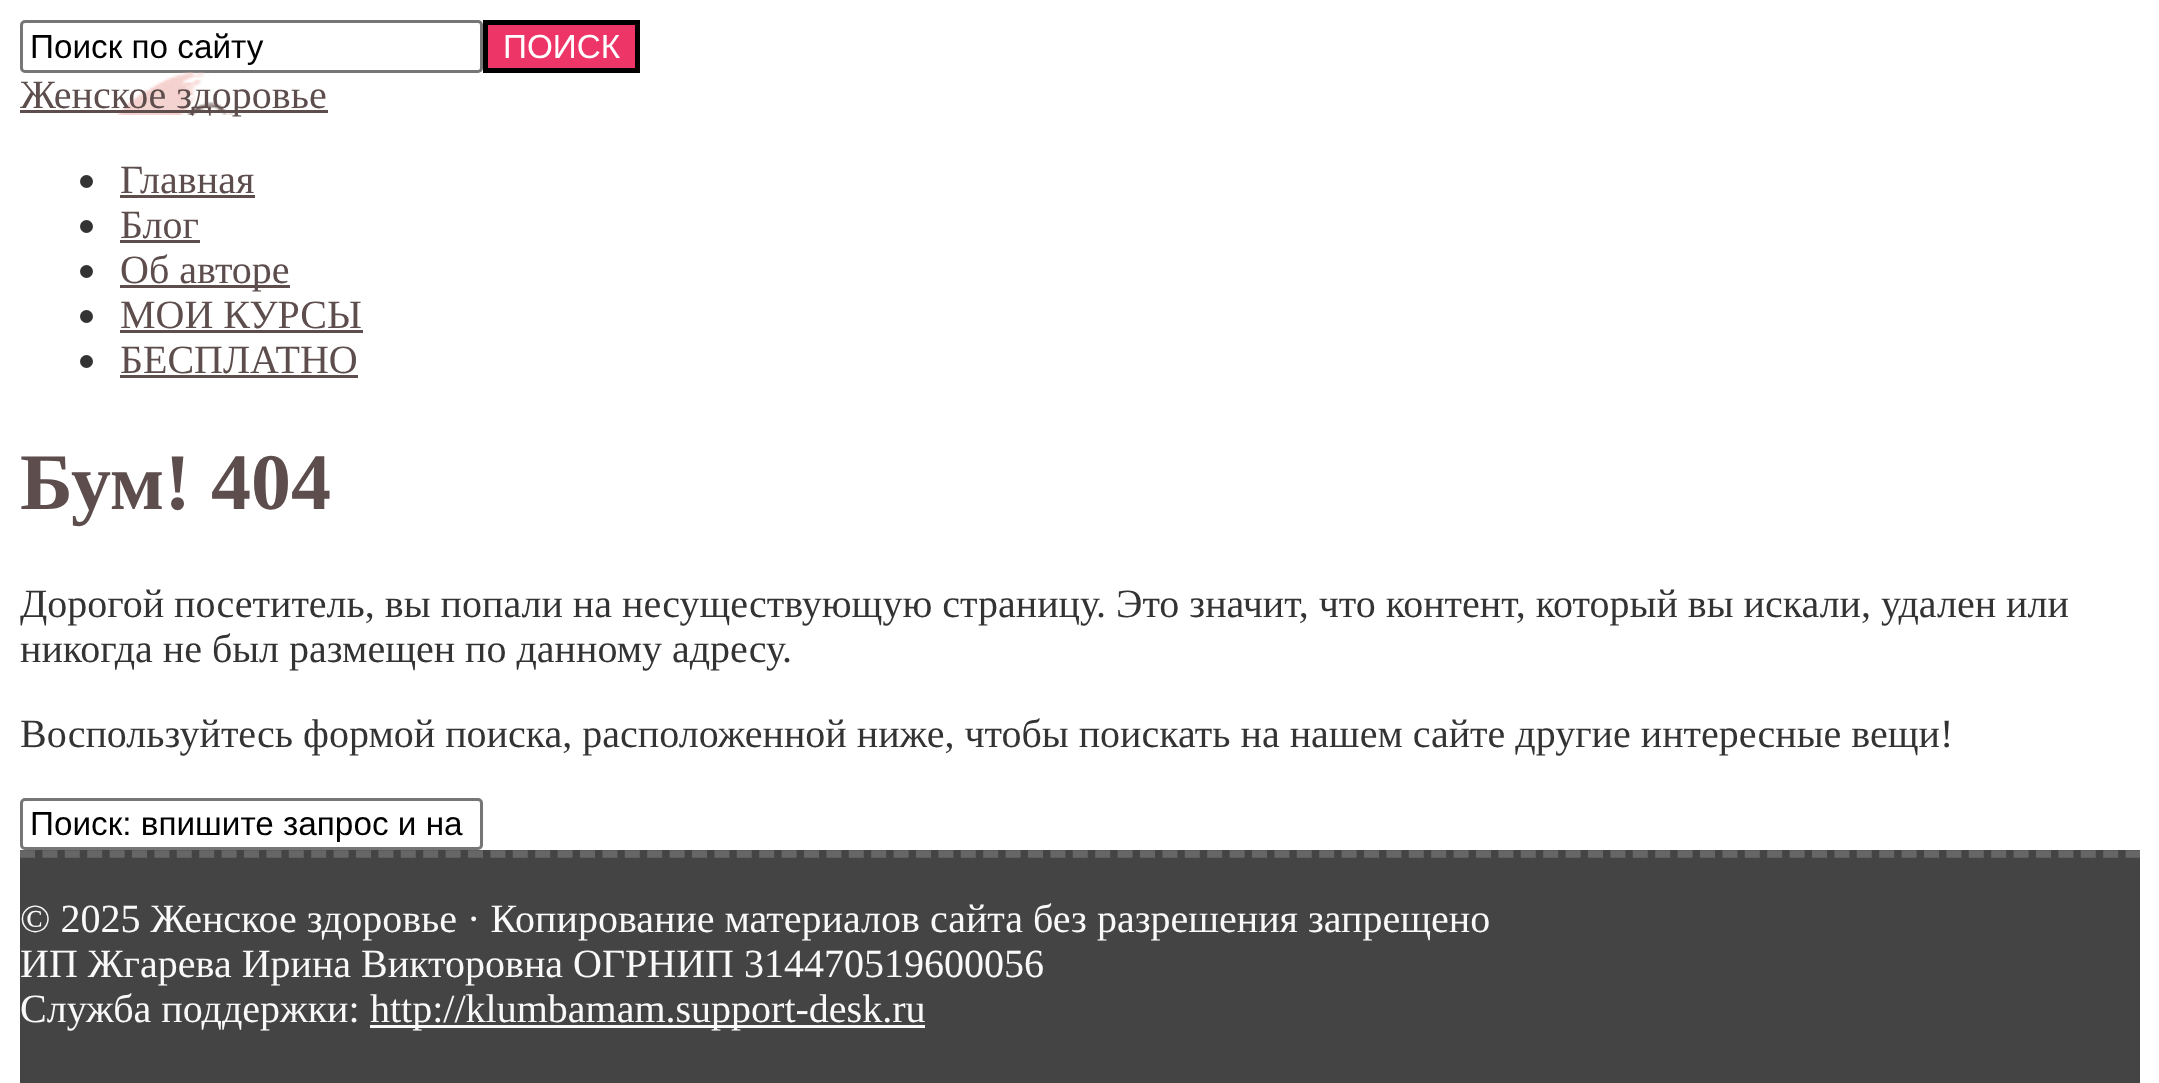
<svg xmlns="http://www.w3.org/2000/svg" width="2159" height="1083">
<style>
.a{font:33.3px Liberation Sans;fill:#000}
.b{font:33.3px Liberation Sans;fill:#fff}
.c{font:40px Liberation Serif;fill:#5d4d4d}
.d{font:bold 80px Liberation Serif;fill:#5d4d4d}
.e{font:40px Liberation Serif;fill:#333}
.f{font:40px Liberation Serif;fill:#f9f9f9}
</style>
<rect width="100%" height="100%" fill="#fff"/>
<rect fill="none" stroke="#767676" stroke-width="3" x="21.5" y="21.5" width="460" height="50" rx="3.5"/>
<path fill="#ed3667" stroke="#000" stroke-width="5" d="M485.5 22.5h152v48H485.5z"/>
<image href="1.png" x="117" y="72" width="117" height="43"/>
<path fill="#5d4d4d" d="M20 110h308v3H20z"/>
<circle fill="#333" cx="86.5" cy="181.5" r="6.5"/>
<path fill="#5d4d4d" d="M120 195h135v3H120z"/>
<circle fill="#333" cx="86.5" cy="226.5" r="6.5"/>
<path fill="#5d4d4d" d="M120 240h80v3H120z"/>
<circle fill="#333" cx="86.5" cy="271.5" r="6.5"/>
<path fill="#5d4d4d" d="M120 285h170v3H120z"/>
<circle fill="#333" cx="86.5" cy="316.5" r="6.5"/>
<path fill="#5d4d4d" d="M120 330h243v3H120z"/>
<circle fill="#333" cx="86.5" cy="361.5" r="6.5"/>
<path fill="#5d4d4d" d="M120 375h238v3H120z"/>
<rect fill="none" stroke="#767676" stroke-width="3" x="21.5" y="799.5" width="460" height="49" rx="3.5"/>
<path fill="#444" d="M20 850h2120v233H20z"/>
<path fill="none" stroke="#666" stroke-width="7.5" stroke-dasharray="15 7.4" d="M20 854h2120"/>
<path fill="#f9f9f9" d="M370 1025h555v3H370z"/>
<text class="a" x="30" y="58">Поиск по сайту</text>
<text class="b" x="503" y="58">ПОИСК</text>
<text class="c" x="20" y="108">Женское здоровье</text>
<text class="c" x="120" y="193">Главная</text>
<text class="c" x="120" y="238">Блог</text>
<text class="c" x="120" y="283">Об авторе</text>
<text class="c" x="120" y="328">МОИ КУРСЫ</text>
<text class="c" x="120" y="373">БЕСПЛАТНО</text>
<text class="d" x="20" y="509">Бум! 404</text>
<text class="e" x="20" y="617">Дорогой посетитель, вы попали на несуществующую страницу. Это значит, что контент, который вы искали, удален или</text>
<text class="e" x="20" y="662">никогда не был размещен по данному адресу.</text>
<text class="e" x="20" y="747">Воспользуйтесь формой поиска, расположенной ниже, чтобы поискать на нашем сайте другие интересные вещи!</text>
<text class="a" x="30" y="835">Поиск: впишите запрос и на</text>
<text class="f" x="20" y="932">© 2025 Женское здоровье · Копирование материалов сайта без разрешения запрещено</text>
<text class="f" x="20" y="977">ИП Жгарева Ирина Викторовна ОГРНИП 314470519600056</text>
<text class="f" x="20" y="1022">Служба поддержки:</text>
<text class="f" x="370" y="1022">http://klumbamam.support-desk.ru</text>
</svg>
